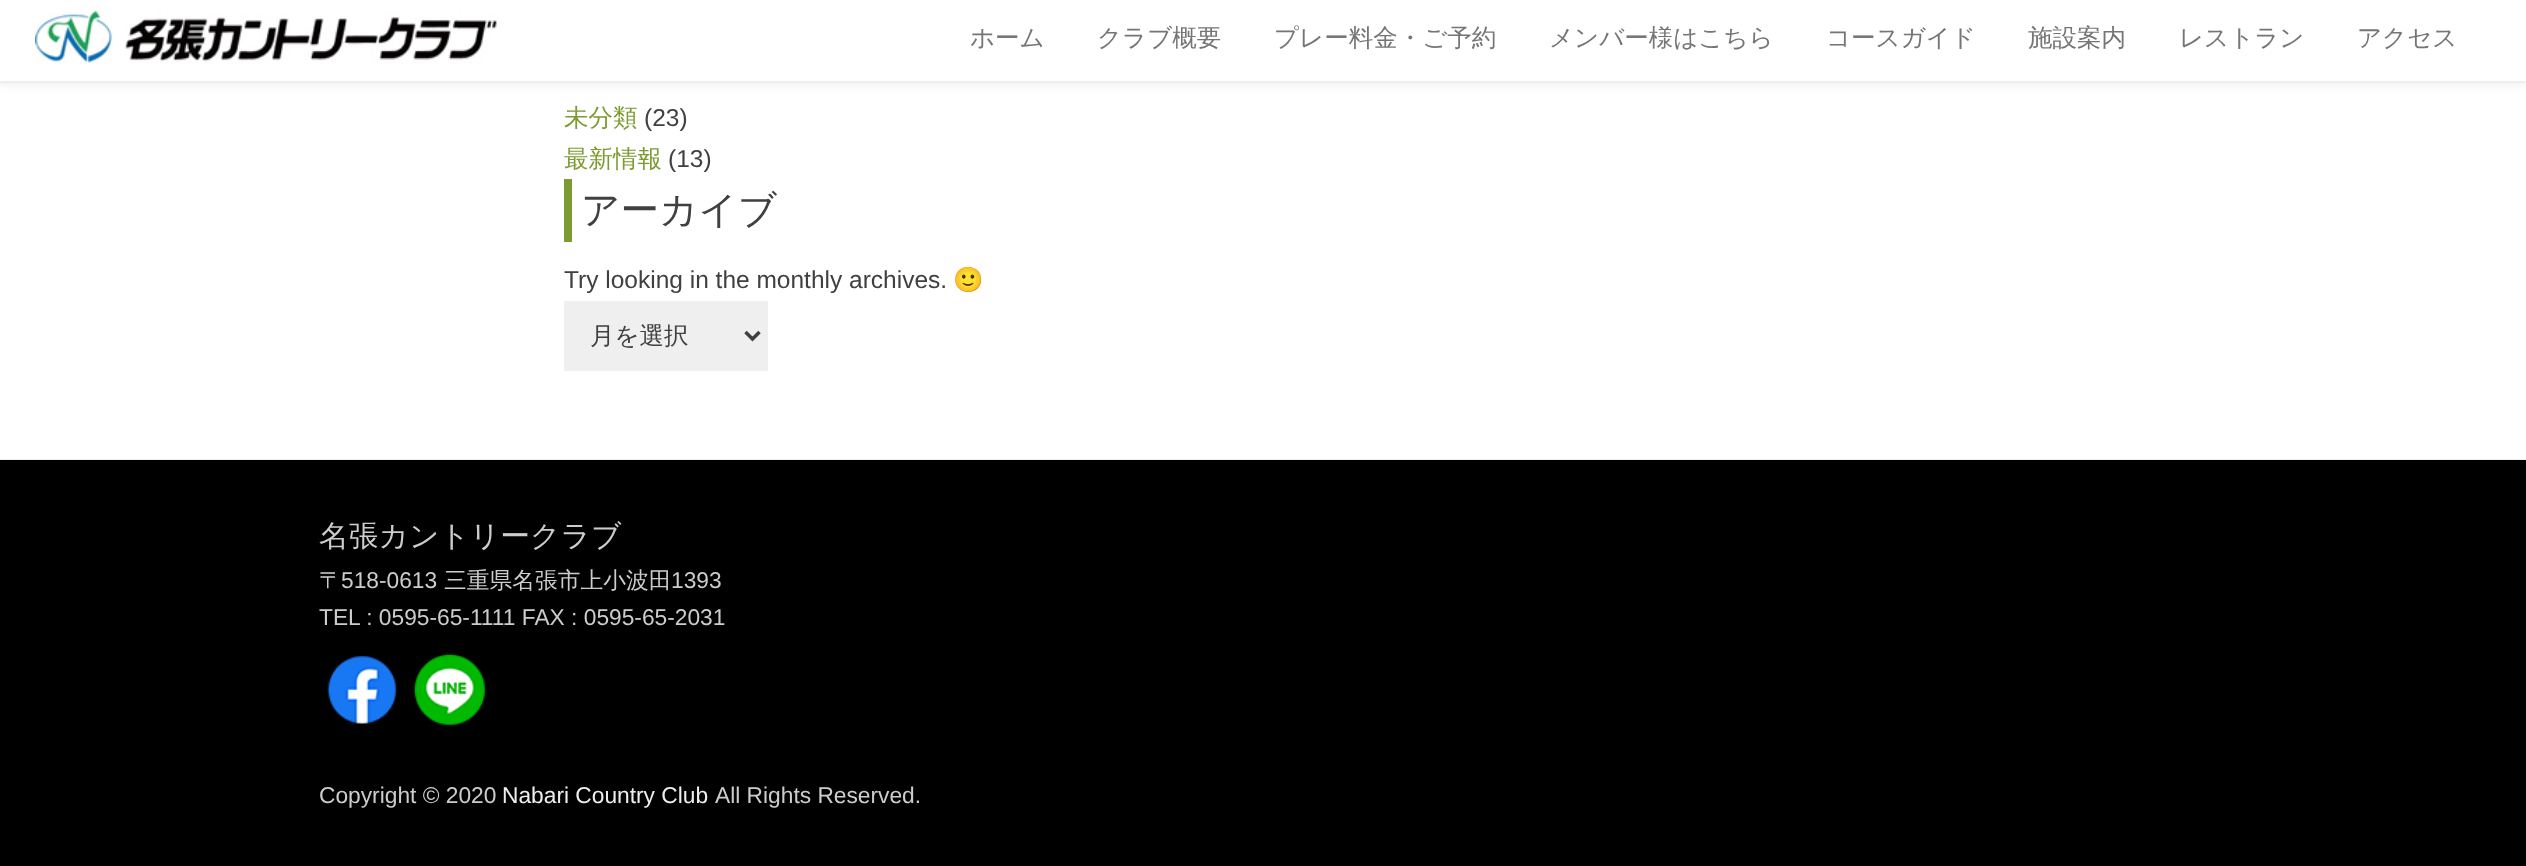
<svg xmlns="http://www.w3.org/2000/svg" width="2526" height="866">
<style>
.a{font:500 24.5px WenQuanYi Zen Hei;fill:#757575}
.b{font:500 24.5px WenQuanYi Zen Hei;fill:#7c9b30}
.c{font:24.5px Liberation Sans;fill:#404040}
.d{font:500 38.5px WenQuanYi Zen Hei;fill:#404040}
.e{font:24.5px Noto Color Emoji;fill:#404040}
.f{font:500 24.5px WenQuanYi Zen Hei;fill:#404040}
.g{font:500 29.75px WenQuanYi Zen Hei;fill:#ccc}
.h{font:500 22.75px WenQuanYi Zen Hei;fill:#ccc}
.i{font:22.75px Liberation Sans;fill:#ccc}
.j{font:22.75px Liberation Sans;fill:#eee}
</style>
<rect width="100%" height="100%" fill="#fff"/>
<path fill="#0000001a" filter="blur(6px)" d="M0 0h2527v82H0z"/>
<path fill="#fff" d="M0 0h2526v81H0z"/>
<path fill="#eee" d="M0 81h2526v2H0z"/>
<image href="1.png" x="35" y="10" width="462" height="54"/>
<path fill="#7c9b30" d="M564 179h8v63H564z"/>
<path fill="#efefef" d="M564 301h204v70H564z"/>
<path fill="none" stroke="#404040" stroke-width="3.5" d="M745.5 332l7 7l7-7"/>
<path fill="#eee" d="M0 459h2526v1H0z"/>
<path fill="#000" d="M0 460h2526v406H0z"/>
<image href="2.png" x="327" y="656" width="70" height="69"/>
<image href="3.png" x="414" y="654" width="71" height="71"/>
<text class="a" x="970" y="46">ホーム</text>
<text class="a" x="1097" y="46">クラブ概要</text>
<text class="a" x="1274" y="46">プレー料金・ご予約</text>
<text class="a" x="1549" y="46">メンバー様はこちら</text>
<text class="a" x="1826" y="46">コースガイド</text>
<text class="a" x="2028" y="46">施設案内</text>
<text class="a" x="2179" y="46">レストラン</text>
<text class="a" x="2357" y="46">アクセス</text>
<text class="b" x="564" y="126">未分類</text>
<text class="c" x="644" y="126">(23)</text>
<text class="b" x="564" y="167">最新情報</text>
<text class="c" x="668" y="167">(13)</text>
<text class="d" x="581" y="223">アーカイブ</text>
<text class="c" x="564" y="288">Try looking in the monthly archives.</text>
<text class="e" x="953" y="288">🙂</text>
<text class="f" x="590" y="344">月を選択</text>
<text class="g" x="319" y="546">名張カントリークラブ</text>
<text class="h" x="319" y="588">〒</text>
<text class="i" x="341" y="588">518-0613</text>
<text class="h" x="444" y="588">三重県名張市上小波田</text>
<text class="i" x="671" y="588">1393</text>
<text class="i" x="319" y="625">TEL : 0595-65-1111 FAX : 0595-65-2031</text>
<text class="i" x="319" y="803">Copyright © 2020</text>
<text class="j" x="502" y="803">Nabari Country Club</text>
<text class="i" x="715" y="803">All Rights Reserved.</text>
</svg>
